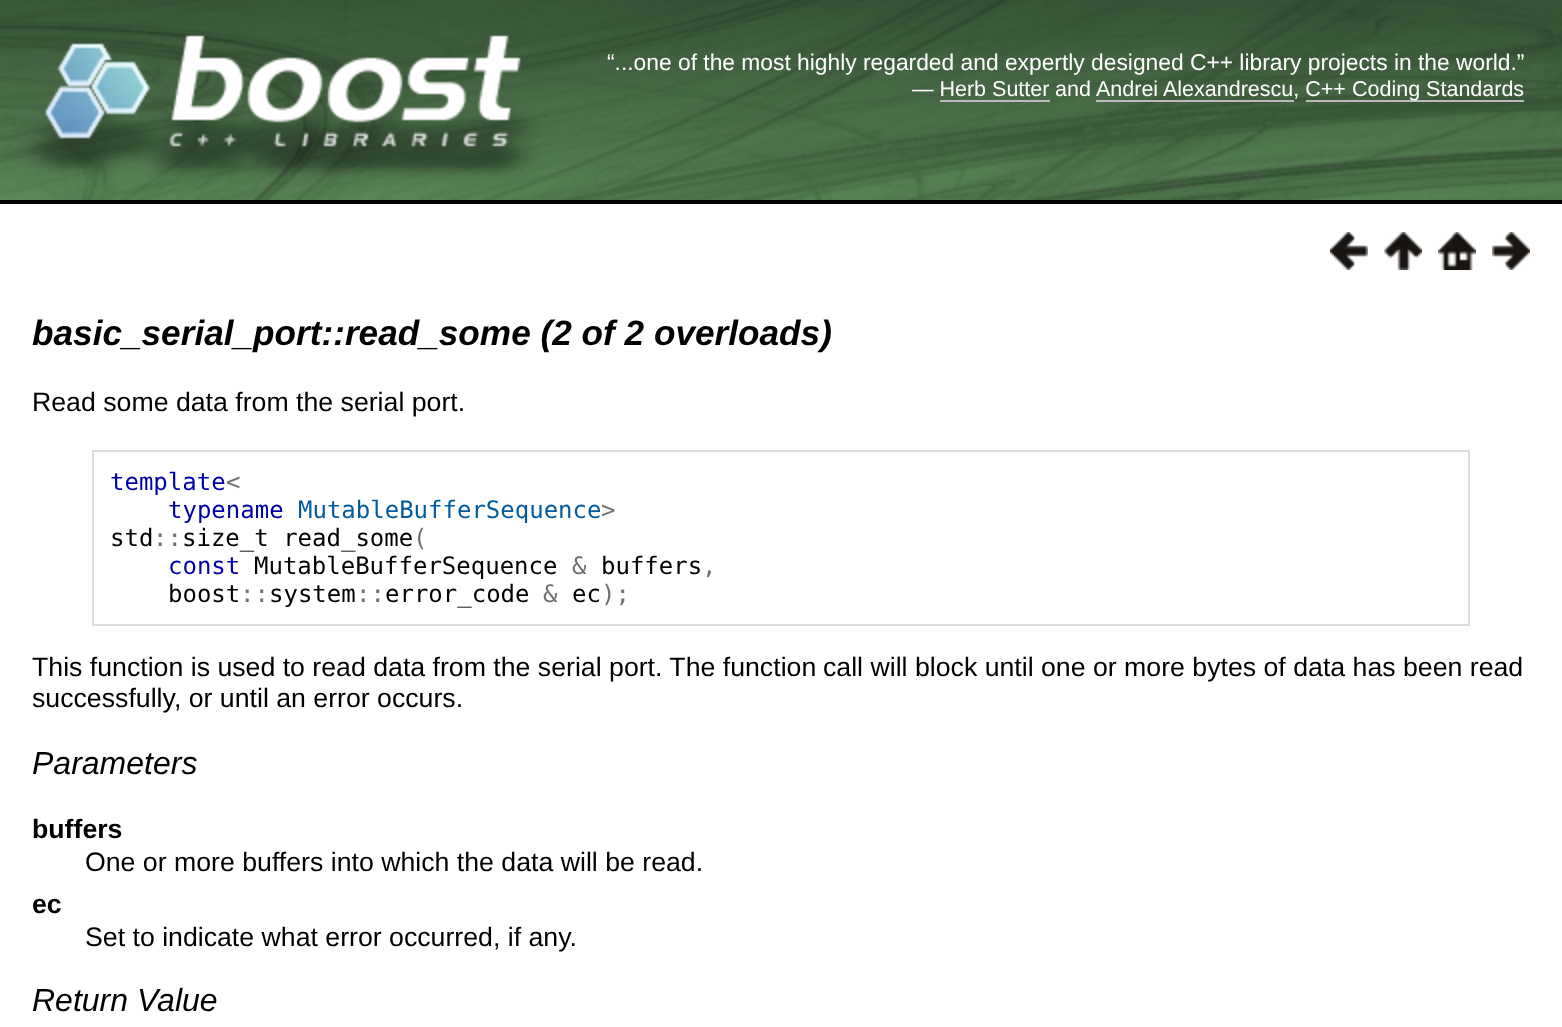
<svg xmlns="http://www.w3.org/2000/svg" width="1562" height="1027">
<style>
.a{font:22.8px Liberation Sans;fill:#fff}
.b{font:21.5px Liberation Sans;fill:#fff}
.c{font:italic bold 35.2px Liberation Sans;fill:#000}
.d{font:26.7px Liberation Sans;fill:#000}
.e{font:24px DejaVu Sans Mono;fill:#00a}
.f{font:24px DejaVu Sans Mono;fill:#707070}
.g{font:24px DejaVu Sans Mono;fill:#005a9c}
.h{font:24px DejaVu Sans Mono;fill:#000}
.i{font:italic 32px Liberation Sans;fill:#000}
.j{font:bold 26.7px Liberation Sans;fill:#000}
</style>
<rect width="100%" height="100%" fill="#fff"/>
<path fill="#000" d="M0 200h1562v4H0z"/>
<image href="1.png" x="0" y="0" width="1562" height="200"/>
<path fill="#bbb" d="M1096 100h198v2H1096z"/>
<path fill="#bbb" d="M1306 100h218v2H1306z"/>
<path fill="#bbb" d="M940 100h110v2H940z"/>
<image href="2.png" x="1330" y="232" width="38" height="38"/>
<image href="3.png" x="1384" y="232" width="38" height="38"/>
<image href="4.png" x="1438" y="232" width="38" height="38"/>
<image href="5.png" x="1492" y="232" width="38" height="38"/>
<path fill="none" stroke="#dcdcdc" stroke-width="2" d="M93 451h1376v174H93z"/>
<text class="a" x="607" y="70">“...one of the most highly regarded and expertly designed C++ library projects in the</text>
<text class="a" x="1456" y="70">world.”</text>
<text class="b" x="912" y="96">— Herb Sutter</text>
<text class="b" x="1055" y="96">and</text>
<text class="b" x="1096" y="96">Andrei</text>
<text class="b" x="1163" y="96">Alexandrescu, C++</text>
<text class="b" x="1352" y="96">Coding Standards</text>
<text class="c" x="32" y="345">basic_serial_port::read_some (2 of 2 overloads)</text>
<text class="d" x="32" y="411">Read some data from the serial port.</text>
<text class="e" x="110" y="490">template</text>
<text class="f" x="226" y="490">&lt;</text>
<text class="e" x="168" y="518">typename</text>
<text class="g" x="298" y="518">MutableBufferSequence</text>
<text class="f" x="601" y="518">&gt;</text>
<text class="h" x="110" y="546">std</text>
<text class="f" x="153" y="546">::</text>
<text class="h" x="182" y="546">size_t read_some</text>
<text class="f" x="413" y="546">(</text>
<text class="e" x="168" y="574">const</text>
<text class="h" x="254" y="574">MutableBufferSequence</text>
<text class="f" x="572" y="574">&amp;</text>
<text class="h" x="601" y="574">buffers</text>
<text class="f" x="702" y="574">,</text>
<text class="h" x="168" y="602">boost</text>
<text class="f" x="240" y="602">::</text>
<text class="h" x="269" y="602">system</text>
<text class="f" x="356" y="602">::</text>
<text class="h" x="385" y="602">error_code</text>
<text class="f" x="543" y="602">&amp;</text>
<text class="h" x="572" y="602">ec</text>
<text class="f" x="601" y="602">);</text>
<text class="d" x="32" y="676">This function is used to read data from the serial port. The function</text>
<text class="d" x="823" y="676">call will block until one or more bytes of data has been read</text>
<text class="d" x="32" y="707">successfully, or until an error occurs.</text>
<text class="i" x="32" y="774">Parameters</text>
<text class="j" x="32" y="838">buffers</text>
<text class="d" x="85" y="871">One or more buffers into which the data will be read.</text>
<text class="j" x="32" y="913">ec</text>
<text class="d" x="85" y="946">Set to indicate what error occurred, if any.</text>
<text class="i" x="32" y="1011">Return Value</text>
</svg>
